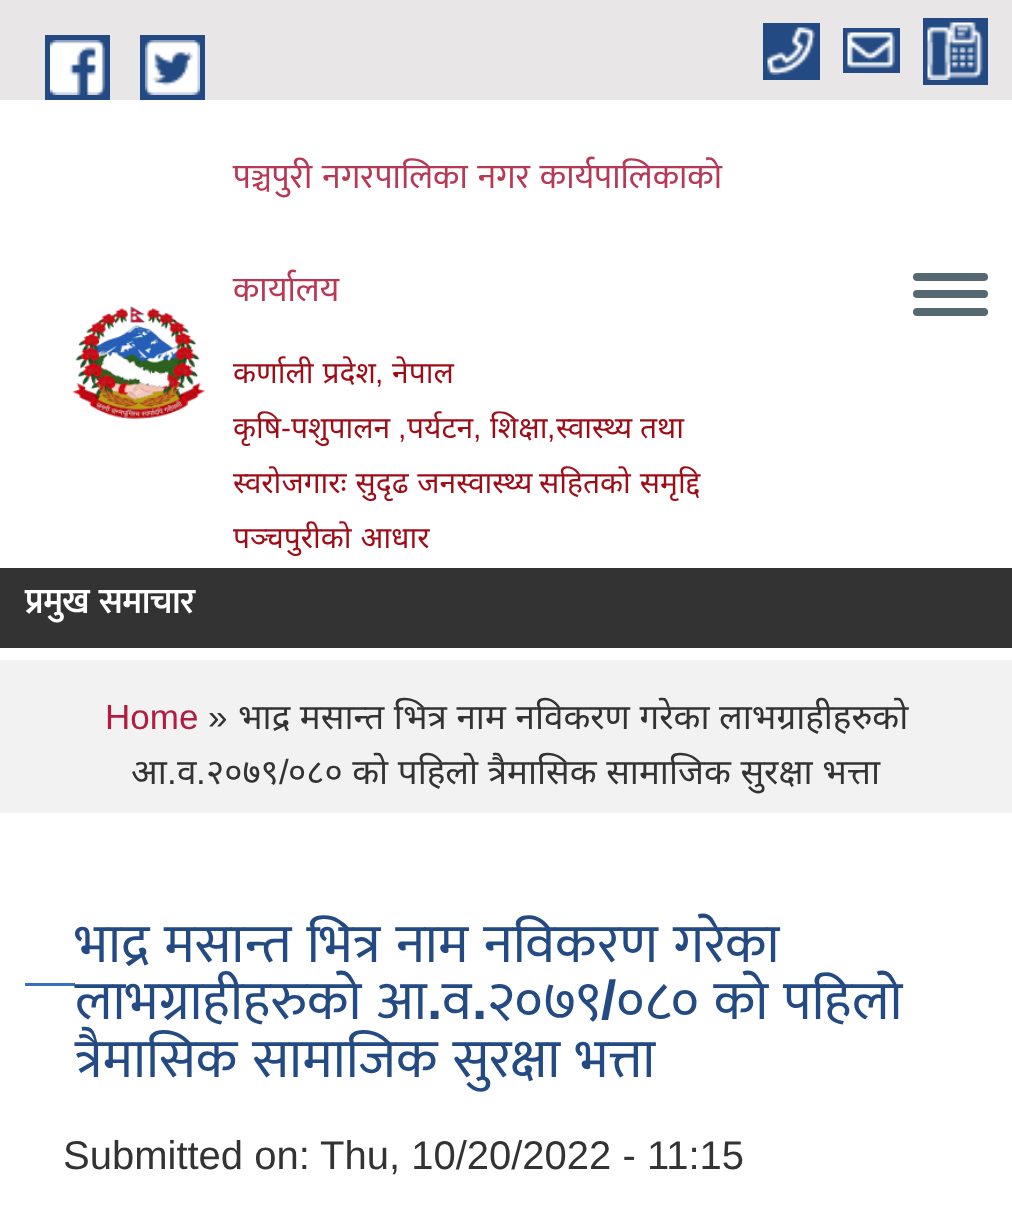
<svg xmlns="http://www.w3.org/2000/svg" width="1012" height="1221">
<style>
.a{font:35px Mukta;fill:#b83955}
.b{font:30px Noto Sans;fill:#9e0c18}
.c{font:30px Liberation Sans;fill:#9e0c18}
.d{font:bold 35px Mukta;fill:#fff}
.e{font:35px Liberation Sans;fill:#b21c42}
.f{font:35px Liberation Sans;fill:#333}
.g{font:35px Noto Sans;fill:#333}
.h{font:55px Mukta;fill:#234a83}
.i{font:bold 55px Liberation Sans;fill:#234a83}
.j{font:40px Liberation Sans;fill:#333}
</style>
<rect width="100%" height="100%" fill="#fff"/>
<path fill="#e8e6e6" d="M0 0h1012v100H0z"/>
<path fill="#234a83" d="M45 35h65v65H45z"/>
<path fill="#234a83" d="M140 35h65v65H140z"/>
<image href="1.png" x="50" y="40" width="55" height="55"/>
<image href="2.png" x="145" y="40" width="55" height="55"/>
<path fill="#234a83" d="M923 18h65v67H923z"/>
<path fill="#234a83" d="M763 23h57v57H763z"/>
<image href="3.png" x="927" y="22" width="56" height="58"/>
<image href="4.png" x="767" y="27" width="48" height="48"/>
<path fill="#234a83" d="M843 28h57v45H843z"/>
<image href="5.png" x="847" y="32" width="48" height="36"/>
<image href="6.png" x="72" y="306" width="134" height="113"/>
<rect fill="#566973" x="913" y="273" width="75" height="8" rx="4"/>
<rect fill="#566973" x="913" y="290" width="75" height="8" rx="4"/>
<rect fill="#566973" x="913" y="308" width="75" height="8" rx="4"/>
<path fill="#333" d="M0 568h1012v80H0z"/>
<path fill="#f2f2f2" d="M0 660h1012v153H0z"/>
<path fill="#376fc2" d="M25 983h50v3H25z"/>
<text class="a" x="233" y="188" word-spacing="2">पञ्चपुरी नगरपालिका नगर कार्यपालिकाको</text>
<text class="a" x="233" y="301">कार्यालय</text>
<text class="b" x="233" y="383" word-spacing="1">कर्णाली प्रदेश</text>
<text class="c" x="375" y="383">,</text>
<text class="b" x="392" y="383">नेपाल</text>
<text class="b" x="233" y="438">कृषि</text>
<text class="c" x="281" y="438">-</text>
<text class="b" x="291" y="438">पशुपालन</text>
<text class="b" x="407" y="438">पर्यटन</text>
<text class="b" x="490" y="438">शिक्षा</text>
<text class="b" x="556" y="438">स्वास्थ्य तथा</text>
<text class="c" x="398" y="438">,</text>
<text class="c" x="473" y="438">,</text>
<text class="c" x="547" y="438">,</text>
<text class="b" x="233" y="493" word-spacing="1">स्वरोजगारः सुदृढ जनस्वास्थ्य</text>
<text class="b" x="539" y="493" word-spacing="1">सहितको समृद्दि</text>
<text class="b" x="233" y="548" word-spacing="1">पञ्चपुरीको आधार</text>
<text class="d" x="25" y="613" word-spacing="2">प्रमुख समाचार</text>
<text class="e" x="105" y="729">Home</text>
<text class="f" x="208" y="729">»</text>
<text class="g" x="238" y="729" word-spacing="0.5">भाद्र मसान्त भित्र नाम नविकरण गरेका</text>
<text class="g" x="719" y="729">लाभग्राहीहरुको</text>
<text class="g" x="131" y="784">आ</text>
<text class="f" x="167" y="784">.</text>
<text class="g" x="177" y="784">व</text>
<text class="f" x="196" y="784">.</text>
<text class="g" x="206" y="784">२०७९</text>
<text class="f" x="279" y="784">/</text>
<text class="g" x="288" y="784" word-spacing="0.5">०८० को पहिलो त्रैमासिक सामाजिक सुरक्षा भत्ता</text>
<text class="h" x="75" y="962" word-spacing="3">भाद्र मसान्त भित्र नाम नविकरण गरेका</text>
<text class="h" x="75" y="1019" word-spacing="3">लाभग्राहीहरुको आ</text>
<text class="i" x="427" y="1019">.</text>
<text class="h" x="442" y="1019">व</text>
<text class="i" x="472" y="1019">.</text>
<text class="h" x="487" y="1019">२०७९</text>
<text class="i" x="601" y="1019">/</text>
<text class="h" x="616" y="1019" word-spacing="3">०८० को पहिलो</text>
<text class="h" x="75" y="1077" word-spacing="3">त्रैमासिक सामाजिक सुरक्षा भत्ता</text>
<text class="j" x="63" y="1169">Submitted on:</text>
<text class="j" x="320" y="1169">Thu, 10/20/2022 - 11:15</text>
</svg>
